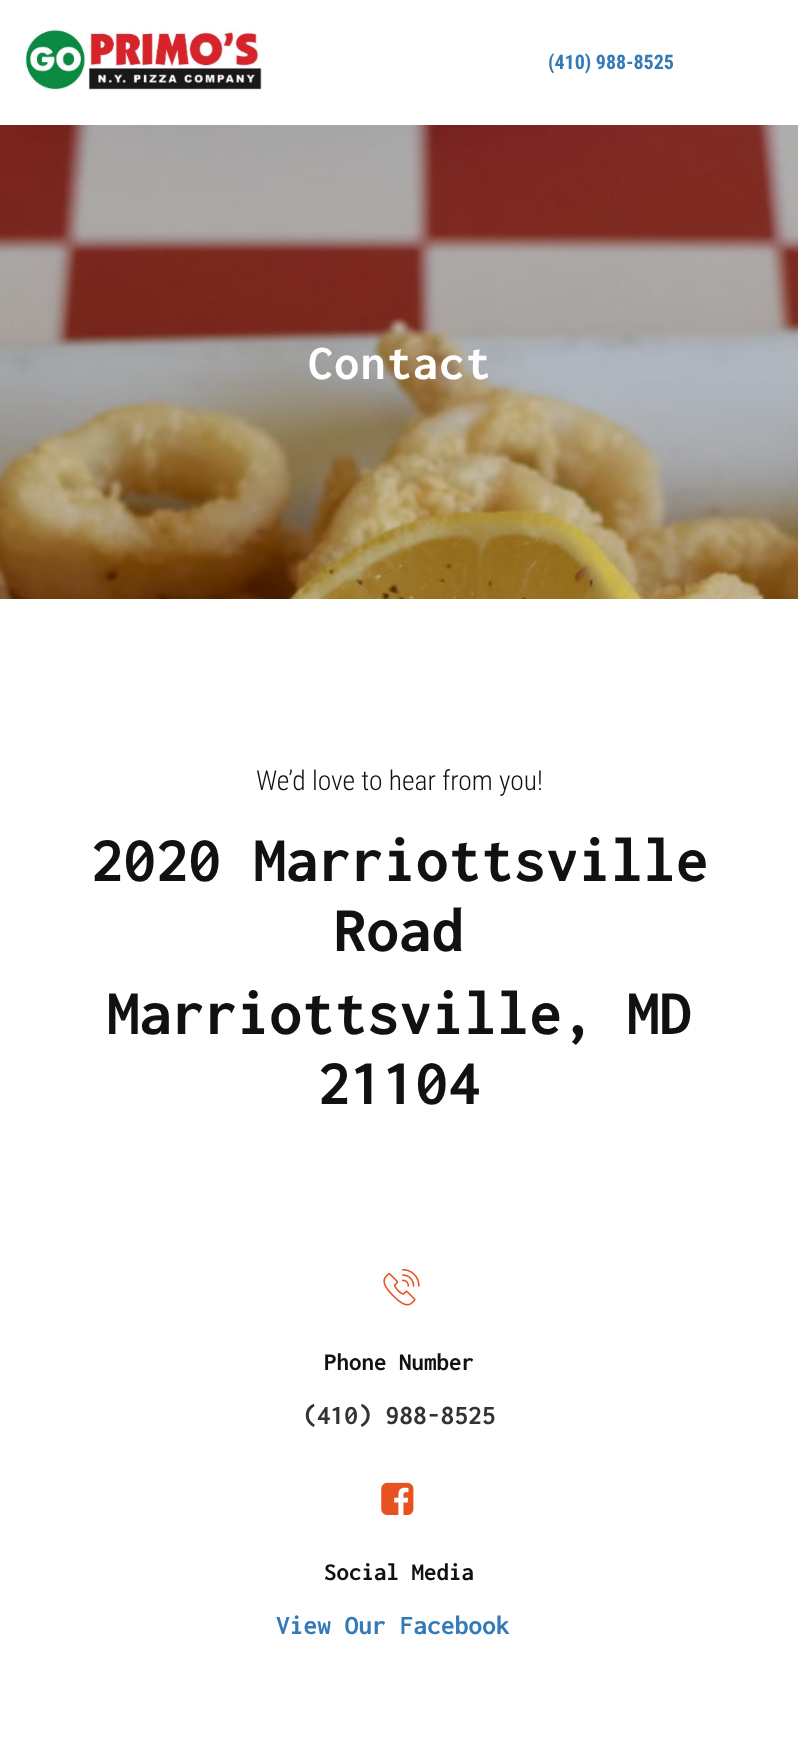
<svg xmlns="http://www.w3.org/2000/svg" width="798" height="1752">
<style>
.a{font:bold 20px Roboto Condensed;fill:#337ab7}
.b{font:bold 50px Inconsolata;letter-spacing:1.25px;fill:#fff}
.c{font:300 27.5px Roboto Condensed;fill:#111}
.d{font:bold 65px Inconsolata;fill:#111}
.e{font:bold 25px Inconsolata;fill:#111}
.f{font:bold 27.5px Inconsolata;fill:#333}
.g{font:bold 27.5px Inconsolata;fill:#337ab7}
</style>
<rect width="100%" height="100%" fill="#fff"/>
<image href="1.png" x="24" y="29" width="238" height="63"/>
<image href="2.png" x="0" y="125" width="798" height="474"/>
<image href="3.png" x="383" y="1269" width="37" height="37"/>
<image href="4.png" x="381" y="1482" width="33" height="33"/>
<text class="a" x="548" y="69">(410) 988-8525</text>
<text class="b" x="308" y="379">Contact</text>
<text class="c" x="256" y="790">We’d love to hear from you!</text>
<text class="d" x="91" y="881">2020 Marriottsville</text>
<text class="d" x="334" y="951">Road</text>
<text class="d" x="107" y="1034">Marriottsville, MD</text>
<text class="d" x="318" y="1104">21104</text>
<text class="e" x="324" y="1370">Phone Number</text>
<text class="f" x="303" y="1424">(410) 988-8525</text>
<text class="e" x="324" y="1580">Social Media</text>
<text class="g" x="276" y="1634">View Our Facebook</text>
</svg>
